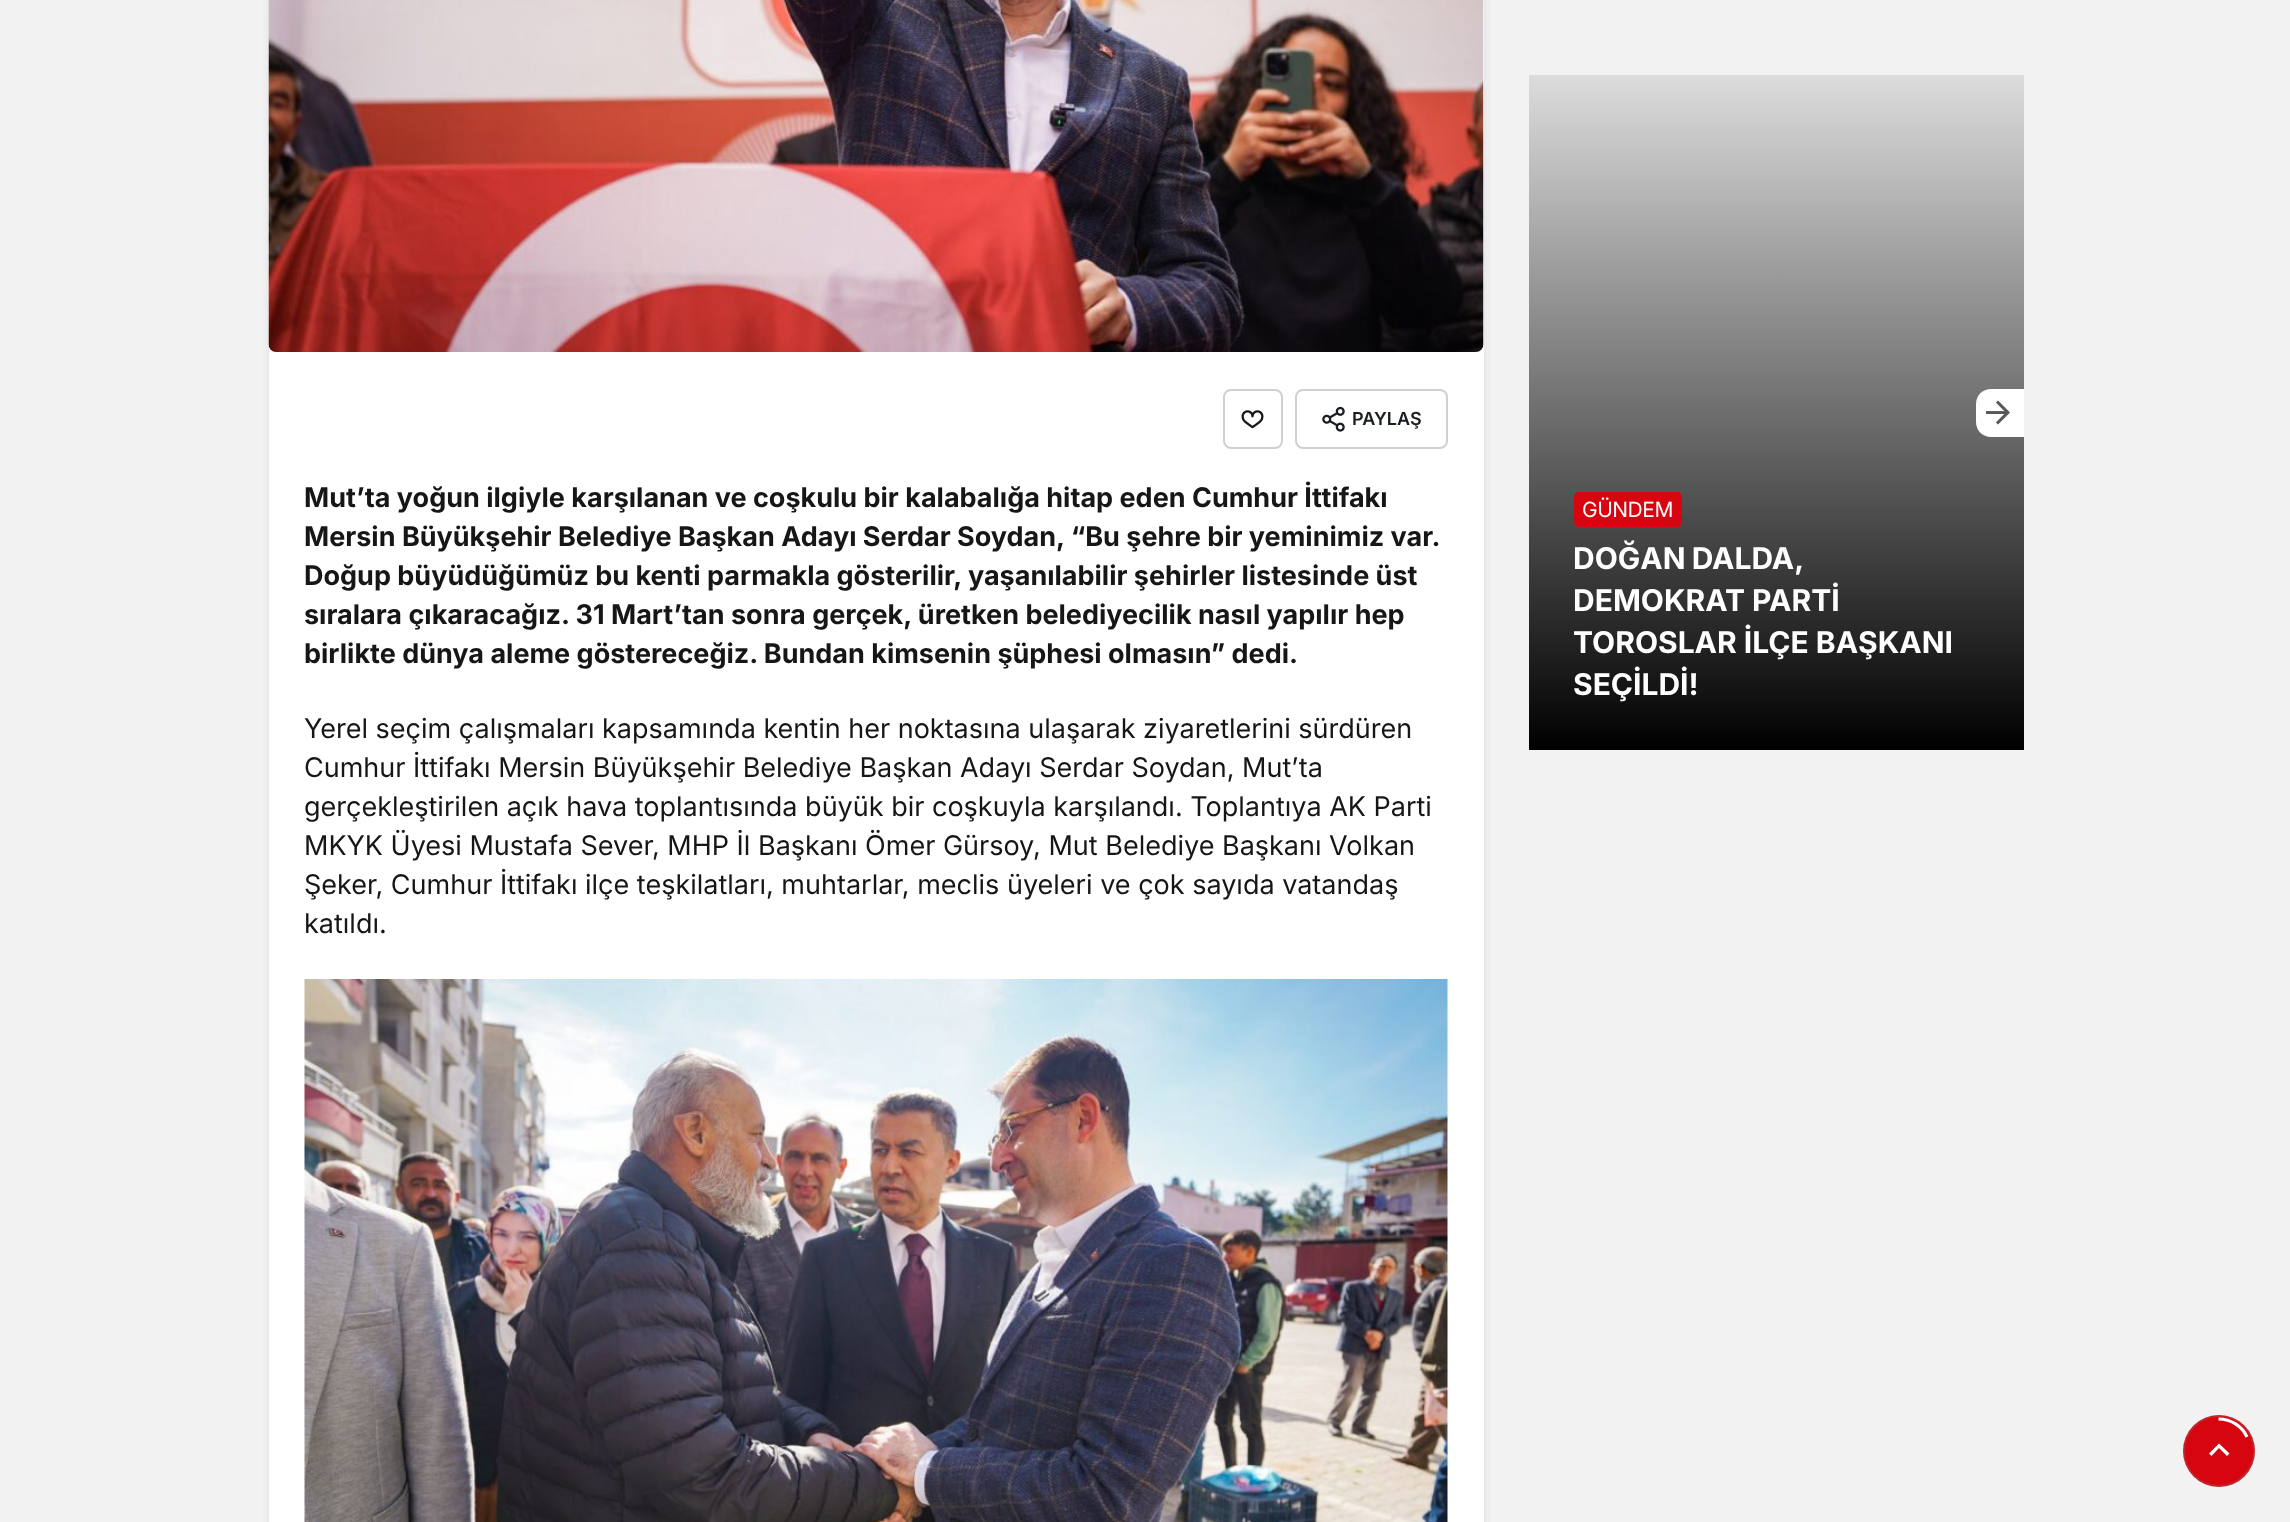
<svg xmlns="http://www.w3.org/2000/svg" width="2290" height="1522">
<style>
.a{font:600 18px Inter;fill:#191c20}
.b{font:bold 27px Inter;fill:#161616}
.c{font:27px Inter;fill:#161616}
.d{font:21px Inter;letter-spacing:-0.5px;fill:#fff}
.e{font:bold 30px Inter;fill:#fff}
</style>
<defs>
<linearGradient id="g1" gradientUnits="userSpaceOnUse" x1="1776" y1="75" x2="1776" y2="750"><stop offset="0" stop-color="#dcdcdc"/><stop offset="1" stop-color="#000"/></linearGradient>
</defs>
<rect width="100%" height="100%" fill="#f2f2f3"/>
<rect fill="#32353d1a" filter="blur(4px)" x="269" y="-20" width="1215" height="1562" rx="8"/>
<path fill="#fff" d="M269 0h1215v1522H269z"/>
<image href="1.png" x="268" y="0" width="1216" height="352"/>
<rect fill="none" stroke="#ced0d4" stroke-width="2" x="1224" y="390" width="58" height="58" rx="7"/>
<image href="2.png" x="1241" y="410" width="23" height="19"/>
<rect fill="none" stroke="#ced0d4" stroke-width="2" x="1296" y="390" width="151" height="58" rx="7"/>
<image href="3.png" x="1322" y="406" width="23" height="26"/>
<image href="4.png" x="304" y="979" width="1144" height="543"/>
<path fill="url(#g1)" d="M1529 75h495v675H1529z"/>
<path fill="#fff" d="M1991 389h33v48h-33c-8.5 0-15-6.5-15-15v-18c0-8.5 6.5-15 15-15z"/>
<image href="5.png" x="1986" y="400" width="24" height="25"/>
<rect fill="#d7050f" x="1574" y="492" width="108" height="35" rx="5"/>
<circle fill="#d7050f" cx="2219" cy="1451" r="36"/>
<circle fill="none" stroke="#80828640" stroke-width="2" cx="2219" cy="1451" r="35"/>
<path fill="none" stroke="#fff" stroke-width="3.2" d="M2218.5 1419c12.5 0 23.5 7 28.5 18"/>
<path fill="#fff" d="M2211.5 1456l-2.5-2.5l10-10l10.5 10l-2.5 2.5l-8-8z"/>
<text class="a" x="1352" y="425">PAYLAŞ</text>
<text class="b" x="304" y="507">Mut’ta yoğun ilgiyle karşılanan ve coşkulu bir kalabalığa hitap eden Cumhur İttifakı</text>
<text class="b" x="304" y="546">Mersin Büyükşehir Belediye Başkan Adayı Serdar Soydan, “Bu şehre bir yeminimiz var.</text>
<text class="b" x="304" y="585">Doğup büyüdüğümüz bu kenti parmakla gösterilir, yaşanılabilir şehirler listesinde üst</text>
<text class="b" x="304" y="624">sıralara çıkaracağız. 31 Mart’tan sonra gerçek, üretken belediyecilik nasıl yapılır hep</text>
<text class="b" x="304" y="663">birlikte dünya aleme göstereceğiz. Bundan kimsenin şüphesi olmasın” dedi.</text>
<text class="c" x="304" y="738">Yerel seçim çalışmaları kapsamında kentin her noktasına ulaşarak ziyaretlerini sürdüren</text>
<text class="c" x="304" y="777">Cumhur İttifakı Mersin Büyükşehir Belediye Başkan Adayı Serdar Soydan, Mut’ta</text>
<text class="c" x="304" y="816">gerçekleştirilen açık hava toplantısında büyük bir coşkuyla karşılandı. Toplantıya AK Parti</text>
<text class="c" x="304" y="855">MKYK Üyesi Mustafa Sever, MHP İl Başkanı Ömer Gürsoy, Mut Belediye Başkanı Volkan</text>
<text class="c" x="304" y="894">Şeker, Cumhur İttifakı ilçe teşkilatları, muhtarlar, meclis üyeleri ve çok sayıda vatandaş</text>
<text class="c" x="304" y="933">katıldı.</text>
<text class="d" x="1582" y="517">GÜNDEM</text>
<text class="e" x="1573" y="569" word-spacing="-1">DOĞAN DALDA,</text>
<text class="e" x="1573" y="611">DEMOKRAT PARTİ</text>
<text class="e" x="1573" y="653">TOROSLAR İLÇE BAŞKANI</text>
<text class="e" x="1573" y="695">SEÇİLDİ!</text>
</svg>
